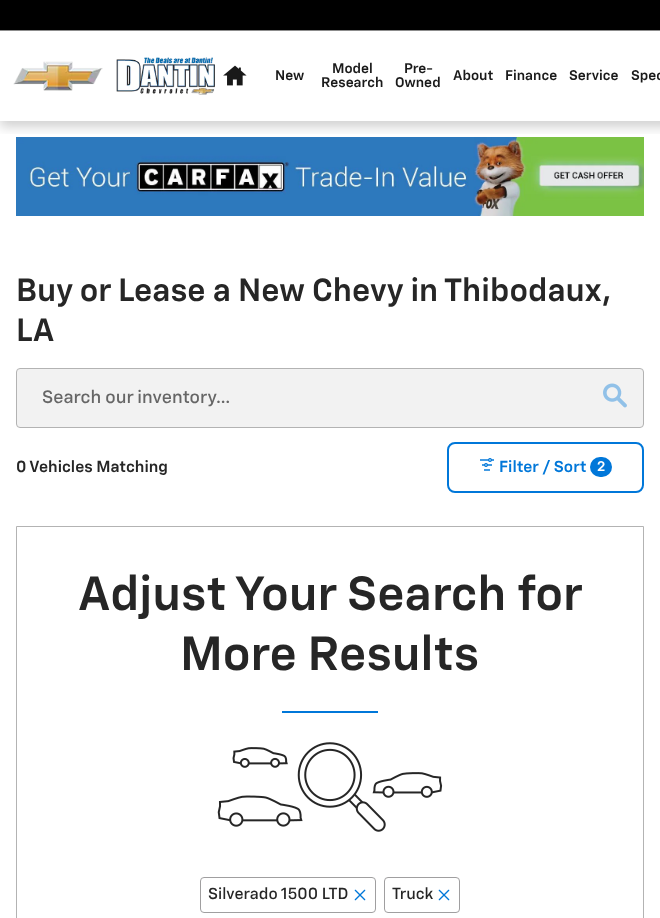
<svg xmlns="http://www.w3.org/2000/svg" width="660" height="918">
<style>
.a{font:600 14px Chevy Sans;fill:#1a1a1a}
.b{font:600 32px Chevy Sans;fill:#262626}
.c{font:500 18px Chevy Sans;fill:#666}
.d{font:600 16px Chevy Sans;fill:#262626}
.e{font:600 16px Chevy Sans;fill:#0077d9}
.f{font:600 14px Chevy Sans;fill:#fff}
.g{font:600 48px Chevy Sans;fill:#262626}
.h{font:500 16px Chevy Sans;fill:#262626}
</style>
<defs>
<clipPath id="clip1"><path d="M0 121h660v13H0z"/></clipPath>
</defs>
<rect width="100%" height="100%" fill="#fff"/>
<image href="4.png" x="16" y="137" width="628" height="79"/>
<g clip-path="url(#clip1)">
<path fill="#0000002e" filter="blur(6px)" d="M0 6h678v121H0z"/>
</g>
<path fill="#000" d="M0 0h660v30H0z"/>
<path fill="#8c8c8c" d="M0 30h660v1H0z"/>
<image href="1.png" x="13" y="61" width="90" height="30"/>
<image href="2.png" x="116" y="57" width="99" height="38"/>
<image href="3.png" x="223" y="65" width="24" height="21"/>
<rect fill="#f2f2f2" stroke="#b3b3b3" x="16.5" y="368.5" width="627" height="59" rx="3.5"/>
<image href="5.png" x="603" y="383" width="24" height="25"/>
<rect fill="none" stroke="#0077d9" stroke-width="2" x="448" y="443" width="195" height="49" rx="7"/>
<image href="6.png" x="480" y="458" width="14" height="13"/>
<rect fill="#0077d9" x="590" y="457" width="22" height="20" rx="10"/>
<path fill="none" stroke="#b3b3b3" d="M16.5 526.5h627v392H16.5z"/>
<path fill="#0077d9" d="M282 711h96v2H282z"/>
<image href="7.png" x="217" y="742" width="226" height="90"/>
<rect fill="none" stroke="#a09fa0" x="200.5" y="877.5" width="175" height="35" rx="3.5"/>
<image href="8.png" x="354" y="889" width="12" height="12"/>
<rect fill="none" stroke="#a09fa0" x="384.5" y="877.5" width="75" height="35" rx="3.5"/>
<image href="8.png" x="438" y="889" width="12" height="12"/>
<text class="a" x="275" y="80">New</text>
<text class="a" x="332" y="73">Model</text>
<text class="a" x="321" y="87">Research</text>
<text class="a" x="404" y="73">Pre-</text>
<text class="a" x="395" y="87">Owned</text>
<text class="a" x="453" y="80">About</text>
<text class="a" x="505" y="80">Finance</text>
<text class="a" x="569" y="80">Service</text>
<text class="a" x="631" y="80">Spec</text>
<text class="b" x="16" y="301">Buy or Lease a New Chevy in Thibodaux,</text>
<text class="b" x="16" y="341">LA</text>
<text class="c" x="42" y="403">Search our inventory…</text>
<text class="d" x="16" y="472">0 Vehicles Matching</text>
<text class="e" x="499" y="472">Filter / Sort</text>
<text class="f" x="597" y="471">2</text>
<text class="g" x="78" y="610">Adjust Your Search for</text>
<text class="g" x="180" y="670">More Results</text>
<text class="h" x="208" y="899">Silverado 1500 LTD</text>
<text class="h" x="392" y="899">Truck</text>
</svg>
